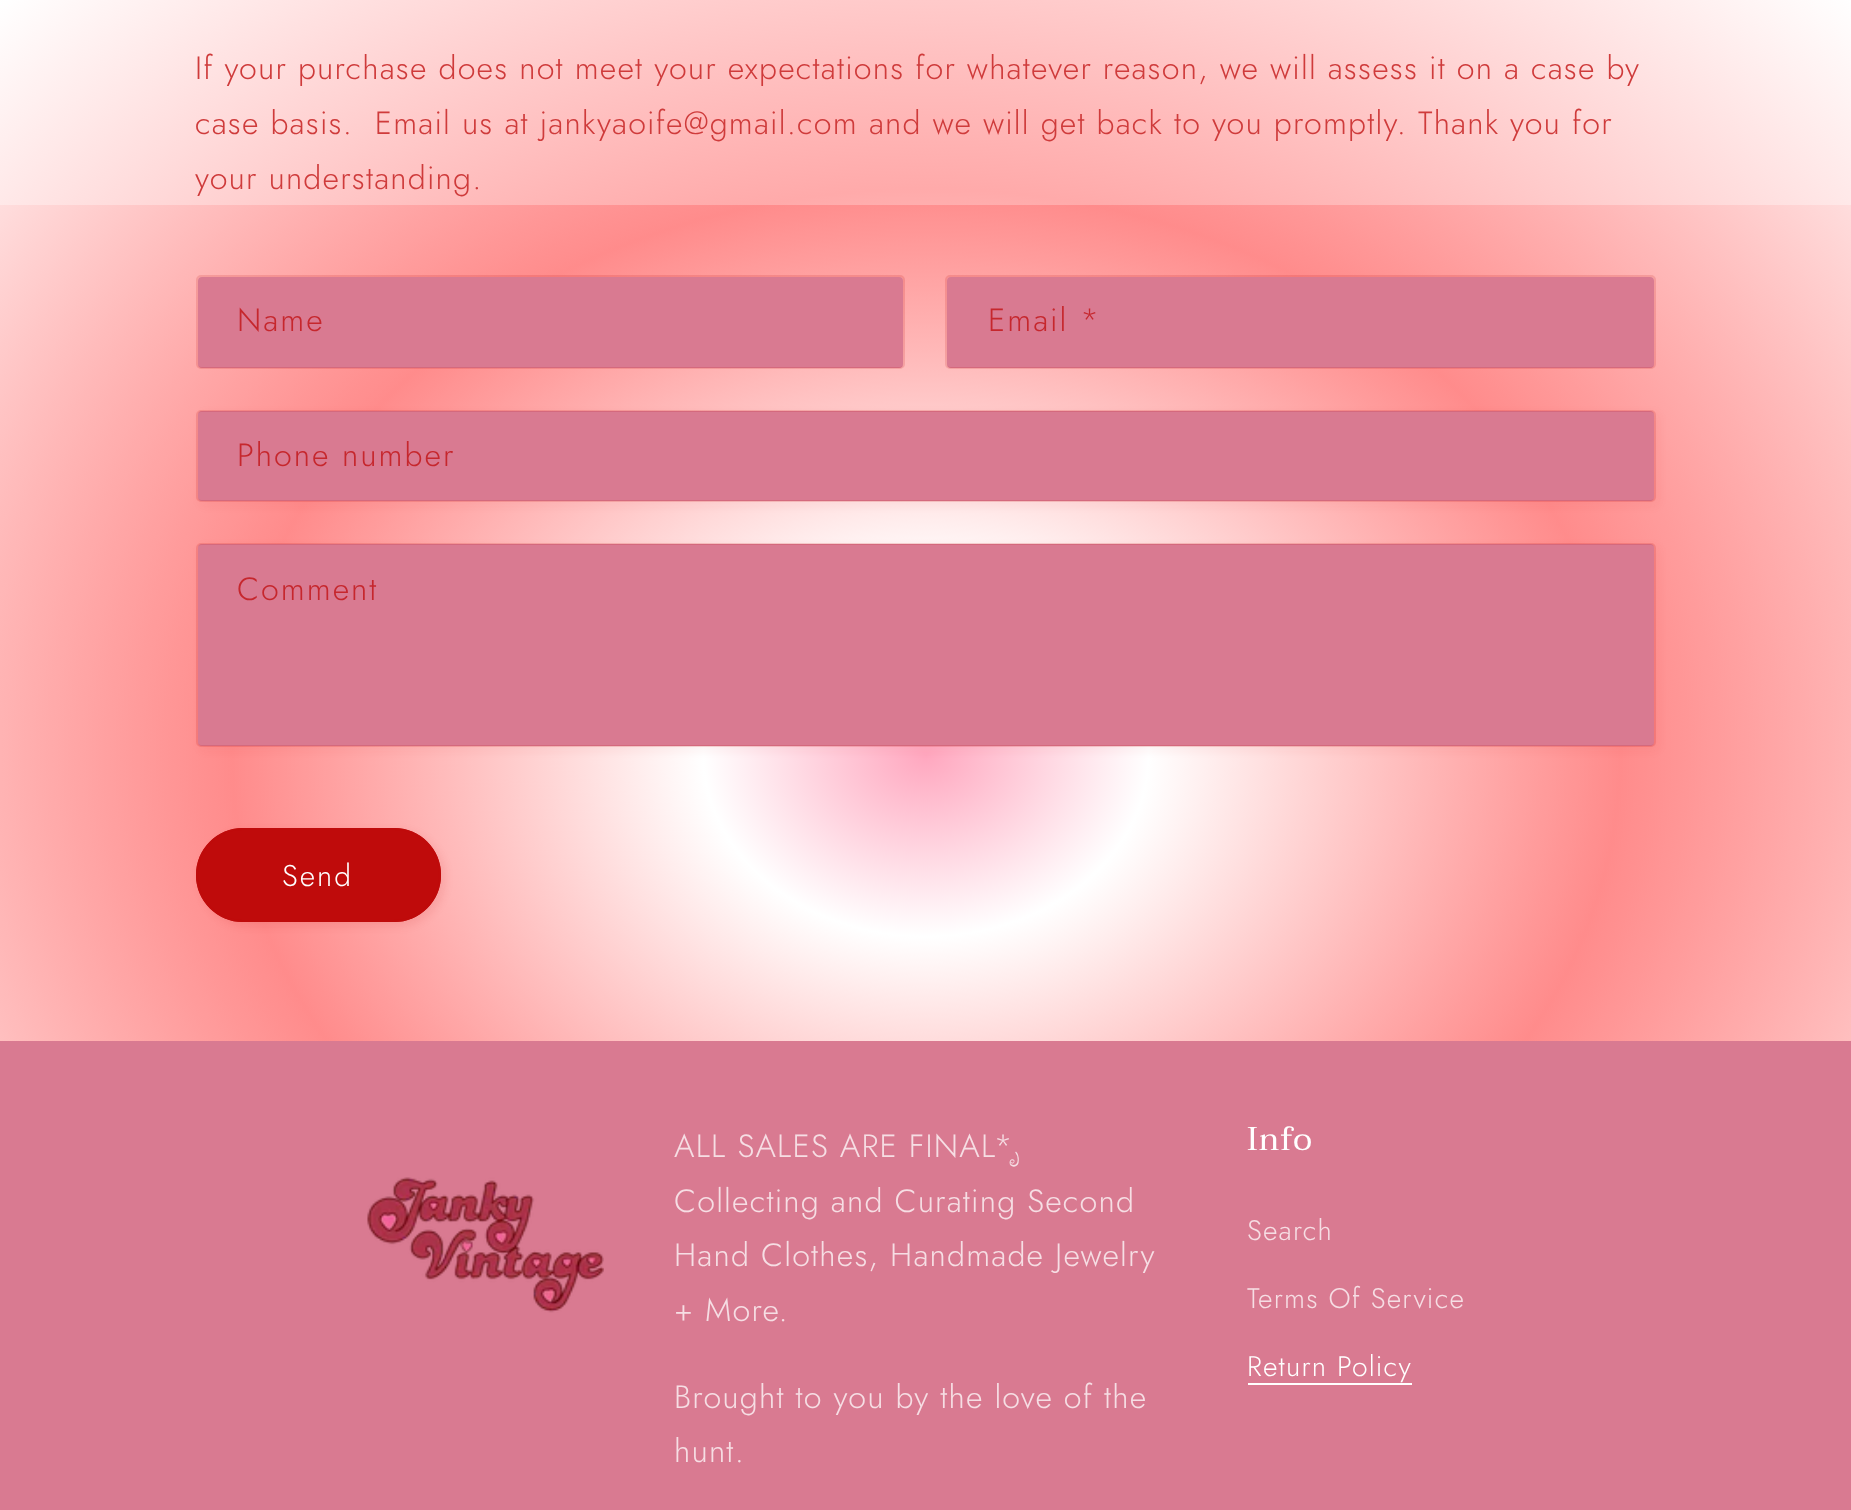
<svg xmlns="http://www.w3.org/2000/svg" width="1851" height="1510">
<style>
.a{font:300 32.2px Jost;letter-spacing:1.2px;fill:#cf3b3b}
.b{font:300 32.2px Jost;letter-spacing:2px;fill:#c6272d}
.c{font:300 30px Jost;letter-spacing:2px;fill:#fff}
.d{font:300 32.2px Jost;letter-spacing:1.2px;fill:#f6dee4}
.e{font:32.2px FreeSerif;letter-spacing:1.2px;fill:#f6dee4}
.f{font:33px Taviraj;letter-spacing:1px;fill:#fff}
.g{font:300 28.25px Jost;letter-spacing:1.2px;fill:#f6dee4}
.h{font:300 28.25px Jost;letter-spacing:1.2px;fill:#fff}
</style>
<defs>
<radialGradient id="g1" gradientUnits="userSpaceOnUse" cx="0" cy="0" r="1" gradientTransform="matrix(1309 0 0 1068 926 755)"><stop offset="0" stop-color="#ffa7bf"/><stop offset="0.17" stop-color="#fff"/><stop offset="0.53" stop-color="#faa"/><stop offset="1" stop-color="#fff"/><stop offset="1" stop-color="#b30202"/><stop offset="1" stop-color="#e92440"/><stop offset="1" stop-color="#e91a5a"/><stop offset="1" stop-color="#e92440"/><stop offset="1" stop-color="#eb7293"/><stop offset="1" stop-color="#b34913"/></radialGradient>
<radialGradient id="g2" gradientUnits="userSpaceOnUse" cx="0" cy="0" r="1" gradientTransform="matrix(1309 0 0 1068 926 755)"><stop offset="0" stop-color="#ffa7bf"/><stop offset="0.17" stop-color="#fff"/><stop offset="0.53" stop-color="#ff7b7b" stop-opacity="0.65"/><stop offset="1" stop-color="#fff"/><stop offset="1" stop-color="#b30202"/><stop offset="1" stop-color="#e92440"/><stop offset="1" stop-color="#e91a5a"/><stop offset="1" stop-color="#e92440"/><stop offset="1" stop-color="#ea6b8d" stop-opacity="0.95"/><stop offset="1" stop-color="#b34913"/></radialGradient>
</defs>
<rect width="100%" height="100%" fill="#fff"/>
<path fill="url(#g1)" d="M0 0h1851v1041H0z"/>
<path fill="url(#g2)" d="M0 205h1851v836H0z"/>
<rect fill="#d97a91" x="198" y="277" width="705" height="91" rx="4"/>
<rect fill="none" stroke="#bf0b0b26" stroke-width="2" x="197" y="276" width="707" height="92" rx="4"/>
<rect fill="#d97a91" x="947" y="277" width="707" height="91" rx="4"/>
<rect fill="none" stroke="#bf0b0b26" stroke-width="2" x="946" y="276" width="709" height="92" rx="4"/>
<rect fill="#bf0b0b0d" filter="blur(4.5px)" x="200" y="413" width="1459" height="93" rx="5"/>
<rect fill="#d97a91" x="198" y="411" width="1456" height="90" rx="4"/>
<rect fill="none" stroke="#bf0b0b26" stroke-width="2" x="197" y="411" width="1458" height="90" rx="4"/>
<rect fill="#bf0b0b0d" filter="blur(4.5px)" x="200" y="546" width="1459" height="205" rx="5"/>
<rect fill="#d97a91" x="198" y="544" width="1456" height="202" rx="4"/>
<rect fill="none" stroke="#bf0b0b26" stroke-width="2" x="197" y="544" width="1458" height="202" rx="4"/>
<rect fill="#bf0b0b1a" filter="blur(4.5px)" x="200" y="831" width="245" height="95" rx="47.5"/>
<rect fill="#bf0b0b" x="196" y="828" width="245" height="94" rx="47"/>
<rect fill="none" stroke="#bf0b0b" stroke-width="2" x="197" y="829" width="243" height="92" rx="46"/>
<path fill="#d97a91" d="M0 1041h1851v469H0z"/>
<image href="1.png" x="367" y="1177" width="237" height="136"/>
<path fill="#fff" d="M1248 1383h164v2H1248z"/>
<text class="a" x="195" y="79">If your purchase does not meet your expectations for whatever reason, we will assess it on a case by</text>
<text class="a" xml:space="preserve" x="195" y="134">case basis.  Email us at</text>
<text class="a" x="540" y="134">jankyaoife@gmail.com</text>
<text class="a" x="869" y="134">and we will get back to you promptly. Thank you for</text>
<text class="a" x="195" y="189">your understanding.</text>
<text class="b" x="237" y="331">Name</text>
<text class="b" x="988" y="331">Email *</text>
<text class="b" x="237" y="466">Phone number</text>
<text class="b" x="237" y="600">Comment</text>
<text class="c" x="282" y="886">Send</text>
<text class="d" x="674" y="1157">ALL SALES ARE FINAL*</text>
<text class="e" x="1014" y="1157">ೃ</text>
<text class="d" x="674" y="1212">Collecting and Curating Second</text>
<text class="d" x="674" y="1266">Hand Clothes, Handmade Jewelry</text>
<text class="d" x="674" y="1321">+ More.</text>
<text class="d" x="674" y="1408">Brought to you by the love of the</text>
<text class="d" x="674" y="1462">hunt.</text>
<text class="f" x="1247" y="1150">Info</text>
<text class="g" x="1247" y="1240">Search</text>
<text class="g" x="1247" y="1308">Terms Of Service</text>
<text class="h" x="1247" y="1376">Return Policy</text>
</svg>
